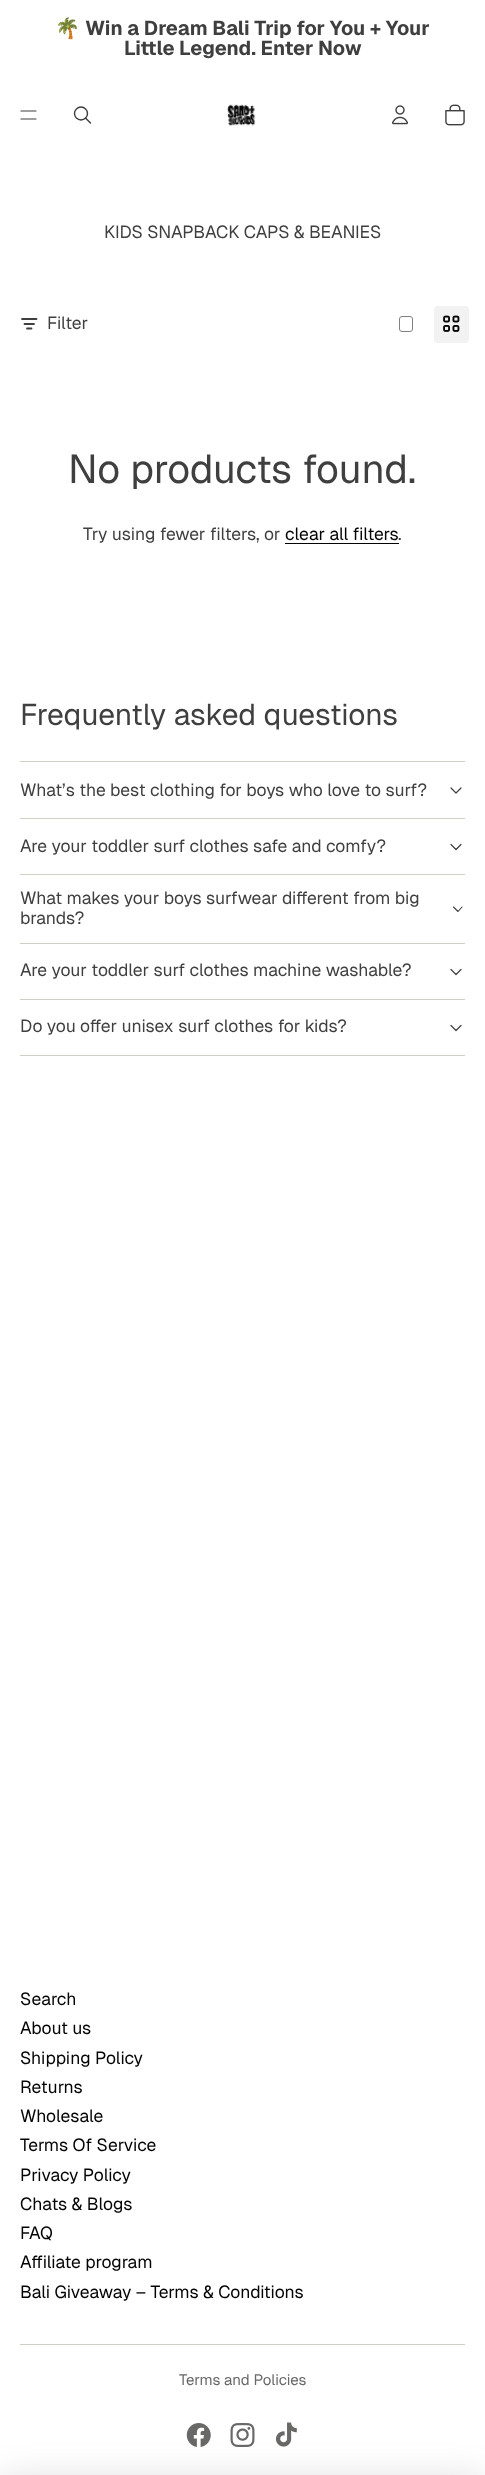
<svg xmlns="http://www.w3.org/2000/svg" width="485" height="2475">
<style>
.a{font:bold 20px Noto Color Emoji;fill:#3f3f3f}
.b{font:bold 20px Geist;fill:#3f3f3f}
.c{font:17.5px Geist;fill:#3f3f3f}
.d{font:40px Geist;fill:#3f3f3f}
.e{font:17.5px Geist;fill:#030302}
.f{font:30px Geist;fill:#3f3f3f}
.g{font:15px Geist;fill:#686867}
</style>
<rect width="100%" height="100%" fill="#fff"/>
<path fill="none" stroke="#3f3f3f" stroke-width="1.2" stroke-linecap="round" d="M21 111h15m-15 8h15"/>
<circle fill="none" stroke="#3f3f3f" stroke-width="1.4" cx="81" cy="113.5" r="6.5"/>
<path fill="none" stroke="#030302c2" stroke-width="1.4" stroke-linecap="round" stroke-linejoin="round" d="M86 118.5l4.5 4.5"/>
<image href="1.png" x="227" y="104" width="29" height="22"/>
<image href="2.png" x="392" y="105" width="16" height="20"/>
<image href="3.png" x="445" y="104" width="20" height="22"/>
<path fill="none" stroke="#3f3f3f" stroke-width="1.8" stroke-linecap="round" d="M36.5 319h-14.5m12 5h-9.5m2.5 4.5h4.5"/>
<rect fill="none" stroke="#818181" x="399.5" y="316.5" width="13" height="15" rx="2.5"/>
<rect fill="#f2f2f2" x="434" y="306" width="35" height="37" rx="4"/>
<image href="4.png" x="443" y="315" width="17" height="17"/>
<path fill="#030302" d="M285 543h114v1H285z"/>
<path fill="#d3cec5" d="M20 761h445v1H20z"/>
<path fill="none" stroke="#3f3f3f" stroke-width="1.2" stroke-linecap="round" stroke-linejoin="round" d="M461 788l-5 5l-5-5"/>
<path fill="#d3cec5" d="M20 818h445v1H20z"/>
<path fill="none" stroke="#3f3f3f" stroke-width="1.2" stroke-linecap="round" stroke-linejoin="round" d="M461 844.5l-5 5l-5-5"/>
<path fill="#d3cec5" d="M20 874h445v1H20z"/>
<path fill="none" stroke="#3f3f3f" stroke-width="1.1" stroke-linecap="round" stroke-linejoin="round" d="M462 907l-4 4.5l-4.5-4.5"/>
<path fill="#d3cec5" d="M20 943h445v1H20z"/>
<path fill="none" stroke="#3f3f3f" stroke-width="1.2" stroke-linecap="round" stroke-linejoin="round" d="M461 969.5l-5 5l-5-5"/>
<path fill="#d3cec5" d="M20 999h445v1H20z"/>
<path fill="#d3cec5" d="M20 1055h445v1H20z"/>
<path fill="none" stroke="#3f3f3f" stroke-width="1.2" stroke-linecap="round" stroke-linejoin="round" d="M461 1025.5l-5 5l-5-5"/>
<path fill="#d3cec5" d="M20 2344h445v1H20z"/>
<image href="5.png" x="186" y="2423" width="25" height="24"/>
<image href="6.png" x="230" y="2423" width="25" height="24"/>
<image href="7.png" x="276" y="2422" width="21" height="25"/>
<path fill="#00000026" filter="blur(19px)" d="M0 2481h485v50H0z"/>
<text class="a" x="55" y="35">🌴</text>
<text class="b" x="85" y="35">Win a Dream Bali Trip for You + Your</text>
<text class="b" x="124" y="55">Little Legend. Enter Now</text>
<text class="c" x="104" y="238">KIDS SNAPBACK CAPS &amp; BEANIES</text>
<text class="c" x="47" y="329">Filter</text>
<text class="d" x="68" y="483">No products found.</text>
<text class="c" x="83" y="540">Try using fewer filters, or</text>
<text class="e" x="285" y="540">clear all filters</text>
<text class="c" x="398" y="540">.</text>
<text class="f" x="20" y="725">Frequently asked questions</text>
<text class="c" x="20" y="796">What’s the best clothing for boys who love to surf?</text>
<text class="c" x="20" y="852">Are your toddler surf clothes safe and comfy?</text>
<text class="c" x="20" y="904">What makes your boys surfwear different from big</text>
<text class="c" x="20" y="924">brands?</text>
<text class="c" x="20" y="976">Are your toddler surf clothes machine washable?</text>
<text class="c" x="20" y="1032">Do you offer unisex surf clothes for kids?</text>
<text class="e" x="20" y="2005">Search</text>
<text class="e" x="20" y="2034">About us</text>
<text class="e" x="20" y="2064">Shipping Policy</text>
<text class="e" x="20" y="2093">Returns</text>
<text class="e" x="20" y="2122">Wholesale</text>
<text class="e" x="20" y="2151">Terms Of Service</text>
<text class="e" x="20" y="2181">Privacy Policy</text>
<text class="e" x="20" y="2210">Chats &amp; Blogs</text>
<text class="e" x="20" y="2239">FAQ</text>
<text class="e" x="20" y="2268">Affiliate program</text>
<text class="e" x="20" y="2298">Bali Giveaway – Terms &amp; Conditions</text>
<text class="g" x="179" y="2385">Terms and Policies</text>
</svg>
